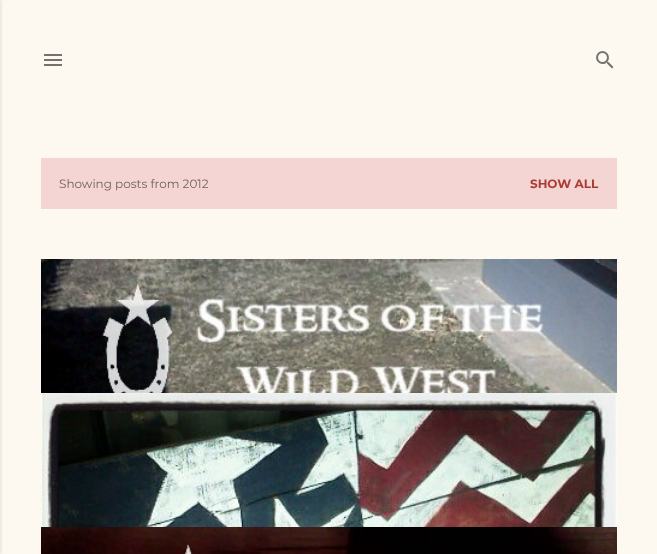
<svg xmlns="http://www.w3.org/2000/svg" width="657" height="554">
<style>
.a{font:12px Montserrat;fill:#706261}
.b{font:bold 12px Montserrat;fill:#a93c33}
</style>
<rect width="100%" height="100%" fill="#fdf9f0"/>
<path fill="#0000001a" filter="blur(1.5px)" d="M-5 0h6v554H-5z"/>
<image href="1.png" x="44" y="54" width="18" height="12"/>
<image href="2.png" x="596" y="51" width="18" height="18"/>
<path fill="#f4d5d3" d="M41 158h576v51H41z"/>
<image href="3.png" x="41" y="259" width="576" height="134"/>
<image href="4.png" x="41" y="393" width="576" height="134"/>
<image href="5.png" x="41" y="527" width="576" height="27"/>
<text class="a" x="59" y="188">Showing posts from 2012</text>
<text class="b" x="530" y="188">SHOW ALL</text>
</svg>
